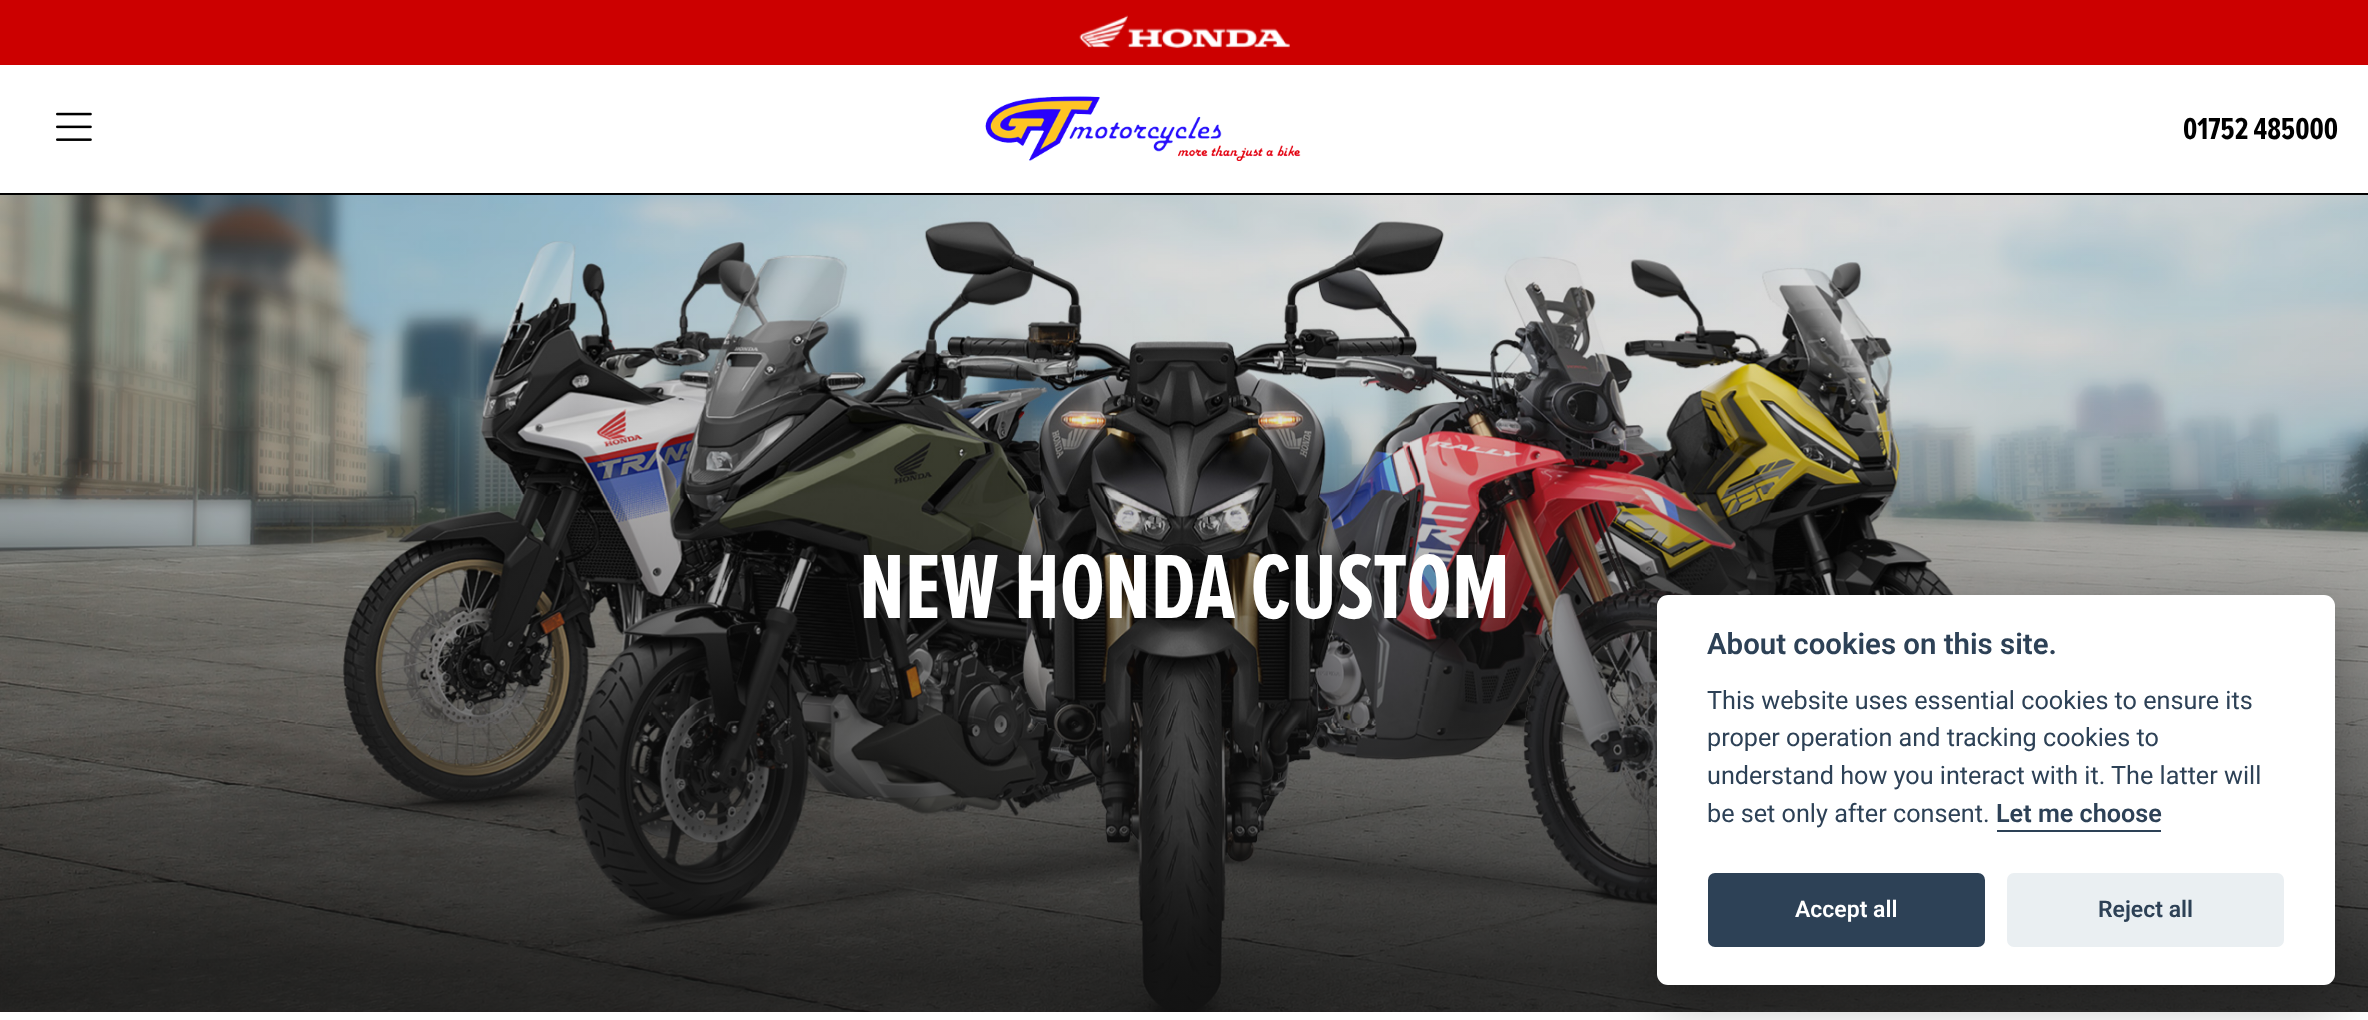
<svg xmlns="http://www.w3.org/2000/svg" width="2368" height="1020">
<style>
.a{font:bold 31.5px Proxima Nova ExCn;fill:#000}
.b{font:bold 94.5px Proxima Nova ExCn;fill:#fff}
.c{font:600 29.4px Roboto;fill:#2d4156}
.d{font:25.2px Roboto;fill:#2d4156}
.e{font:600 25.2px Roboto;fill:#2d4156}
.f{font:600 23px Roboto;fill:#fff}
.g{font:600 23px Roboto;fill:#2d4156}
</style>
<defs>
<linearGradient id="g1" gradientUnits="userSpaceOnUse" x1="1185" y1="1012" x2="1185" y2="194"><stop offset="0.05" stop-color="#121212" stop-opacity="0.86"/><stop offset="0.71" stop-color="#121212" stop-opacity="0.14"/></linearGradient>
</defs>
<rect width="100%" height="100%" fill="#fff"/>
<path fill="#c00" d="M0 0h2368v65H0z"/>
<image href="1.png" x="1079" y="15" width="211" height="34"/>
<path fill="#000" d="M0 193h2368v2H0z"/>
<image href="2.png" x="56" y="112" width="36" height="29"/>
<image href="3.png" x="985" y="96" width="316" height="65"/>
<image href="4.png" x="0" y="195" width="2368" height="817"/>
<path fill="url(#g1)" d="M0 194h2368v818H0z"/>
<rect fill="#02020347" filter="blur(26px)" x="1657" y="613" width="678" height="390" rx="11"/>
<rect fill="#fff" x="1657" y="595" width="678" height="390" rx="11"/>
<path fill="#2d4156" d="M1997 830h164v2H1997z"/>
<rect fill="#2d4156" x="1708" y="873" width="277" height="74" rx="7"/>
<rect fill="#eaeff2" x="2007" y="873" width="277" height="74" rx="7"/>
<text class="a" x="2183" y="139">01752 485000</text>
<text class="b" x="859" y="618">NEW HONDA CUSTOM</text>
<text class="c" x="1707" y="654">About cookies on this site.</text>
<text class="d" x="1707" y="709">This website uses essential cookies to ensure its</text>
<text class="d" x="1707" y="746">proper operation and tracking cookies to</text>
<text class="d" x="1707" y="784">understand how you interact with it. The latter will</text>
<text class="d" x="1707" y="822">be set only after consent.</text>
<text class="e" x="1996" y="822">Let me choose</text>
<text class="f" x="1795" y="917">Accept all</text>
<text class="g" x="2098" y="917">Reject all</text>
</svg>
